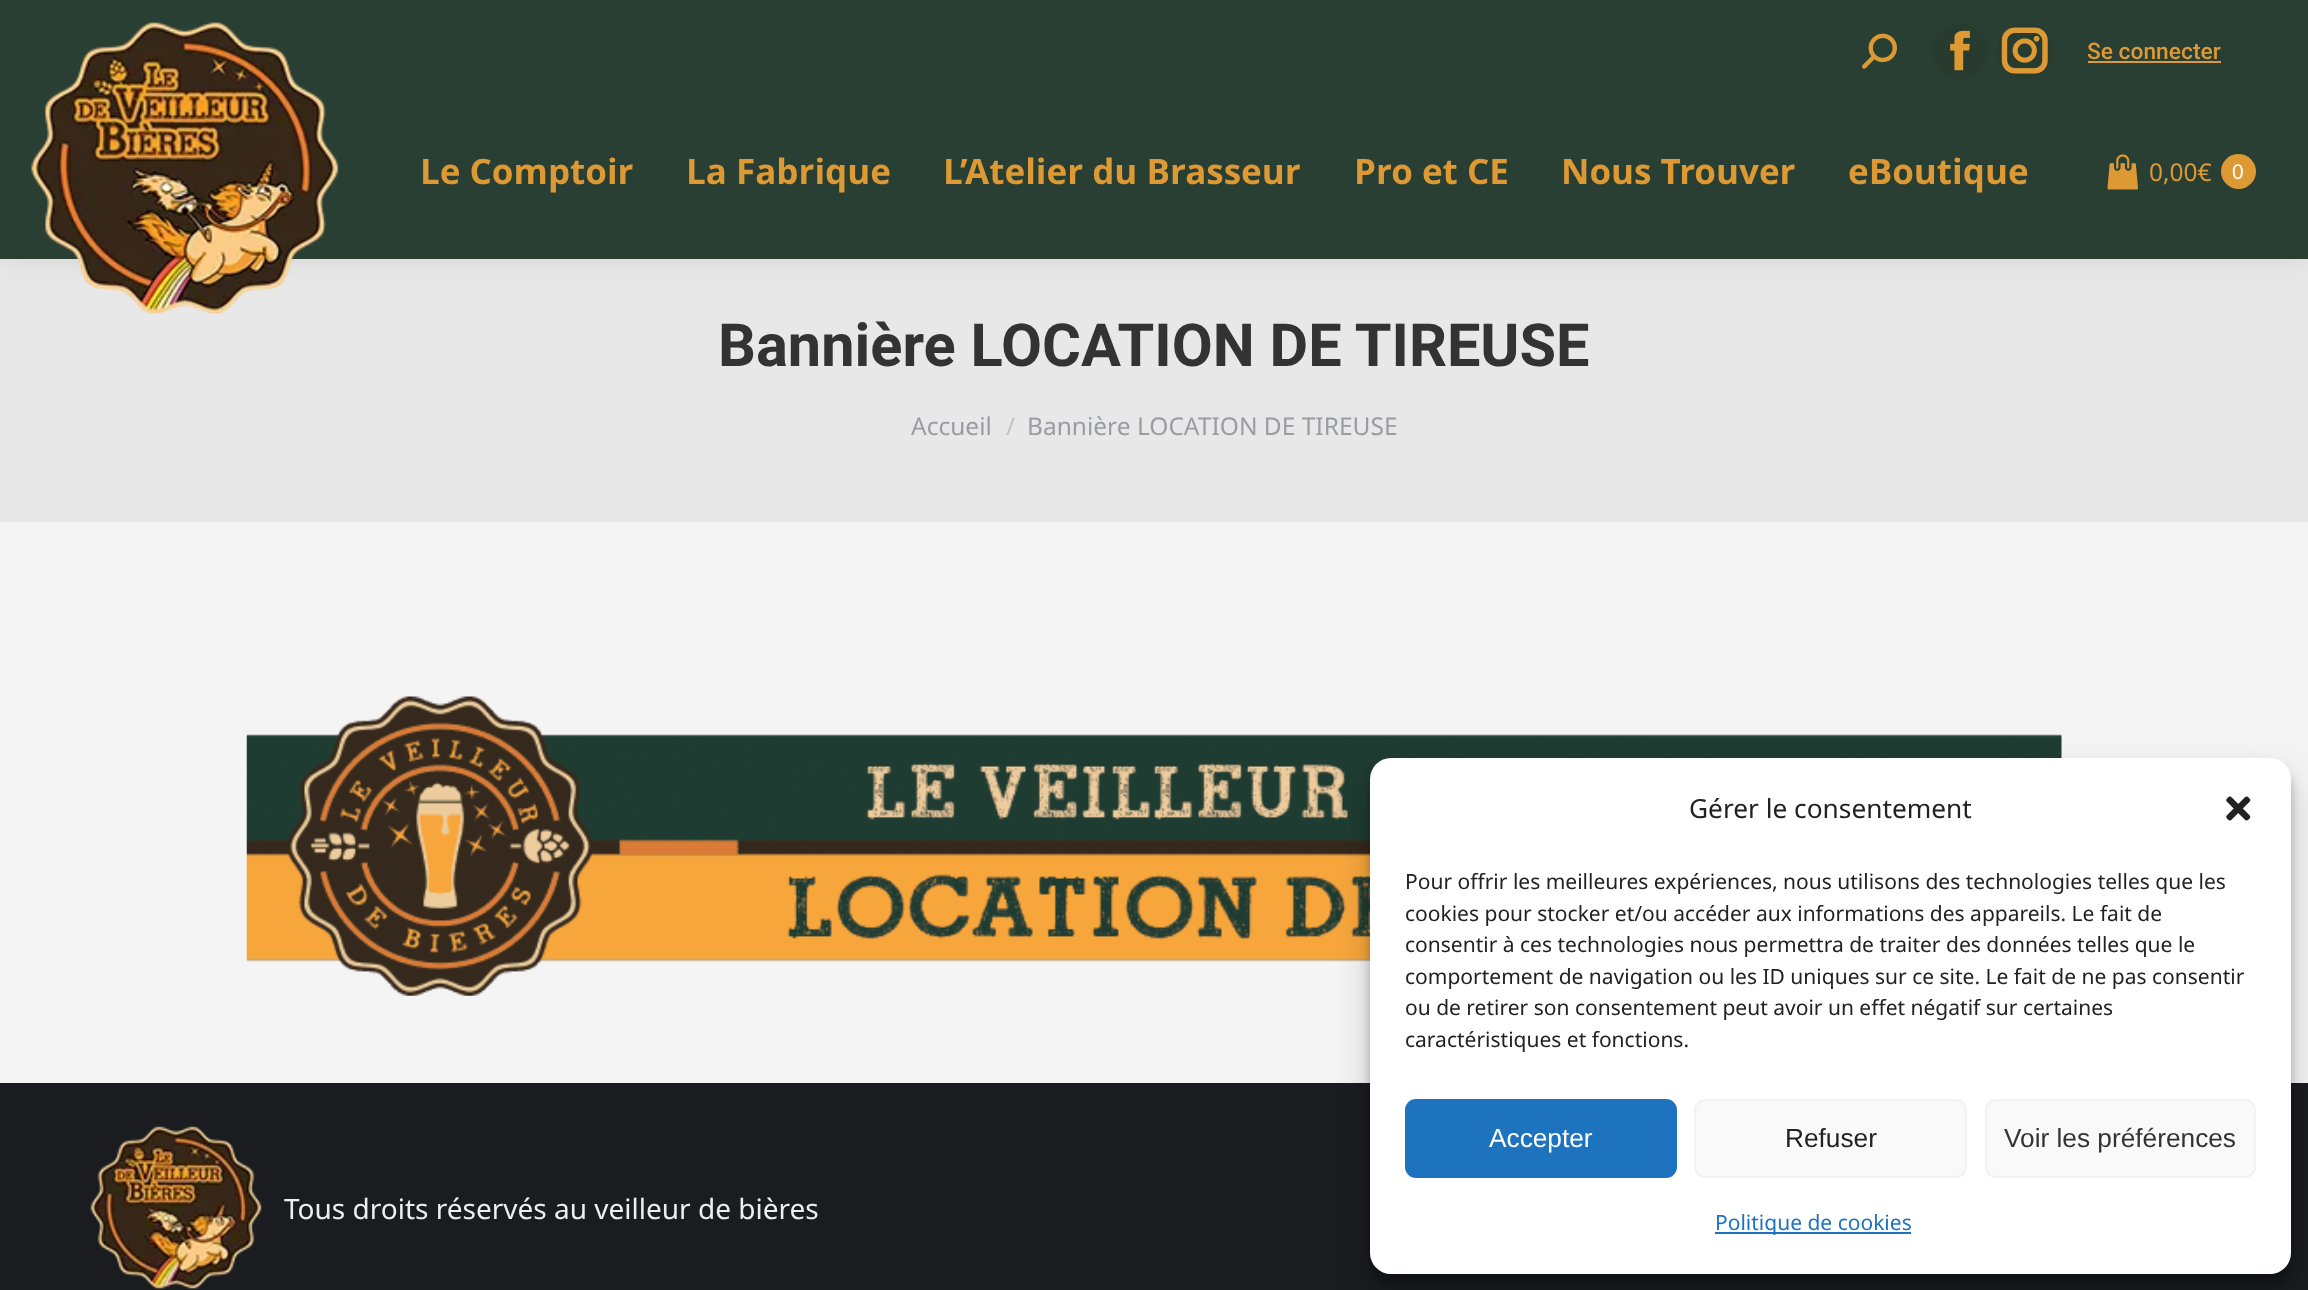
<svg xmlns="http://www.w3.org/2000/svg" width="2308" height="1290">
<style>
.a{font:500 22.75px Roboto;fill:#d93}
.b{font:bold 35px Noto Sans;fill:#d93}
.c{font:24.5px Noto Sans;fill:#d93}
.d{font:21px Liberation Sans;fill:#fff}
.e{font:bold 59.5px Roboto;fill:#333}
.f{font:24.5px Noto Sans;fill:#9b9ca0}
.g{font:24.5px Noto Sans;fill:#c2c2c4}
.h{font:28px Noto Sans;fill:#eee}
.i{font:26.25px Noto Sans;fill:#222}
.j{font:21px Noto Sans;fill:#222}
.k{font:26.25px Liberation Sans;fill:#fff}
.l{font:26.25px Liberation Sans;fill:#222}
.m{font:26.25px Liberation Sans;fill:#333}
.n{font:21px Noto Sans;fill:#1e73be}
</style>
<rect width="100%" height="100%" fill="#f4f4f4"/>
<path fill="#e8e8e8" d="M0 259h2308v263H0z"/>
<path fill="#00000012" filter="blur(13px)" d="M-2 -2h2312v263H-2z"/>
<path fill="#2a3f33" d="M0 0h2308v259H0z"/>
<image href="1.png" x="1862" y="33" width="35" height="36"/>
<circle fill="#273b2f" cx="1960" cy="51" r="28"/>
<image href="2.png" x="1950" y="30" width="20" height="41"/>
<circle fill="#273b2f" cx="2025" cy="51" r="28"/>
<image href="3.png" x="2001" y="27" width="47" height="47"/>
<path fill="#d93" d="M2088 61h133v2H2088z"/>
<image href="4.png" x="31" y="22" width="308" height="292"/>
<image href="5.png" x="2107" y="154" width="32" height="36"/>
<circle fill="#d93" cx="2238.5" cy="171.5" r="17.5"/>
<image href="6.png" x="246" y="696" width="1816" height="300"/>
<path fill="#1a1c20" d="M0 1083h2308v207H0z"/>
<image href="7.png" x="90" y="1126" width="172" height="163"/>
<rect fill="#0000003b" filter="blur(5px)" x="1370" y="768" width="921" height="517" rx="21"/>
<rect fill="#00000030" filter="blur(17.5px)" x="1370" y="775" width="921" height="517" rx="21"/>
<rect fill="#fff" x="1370" y="758" width="921" height="516" rx="21"/>
<image href="8.png" x="2226" y="796" width="25" height="25"/>
<rect fill="#1e73be" stroke="#1e73be" stroke-width="2" x="1406" y="1100" width="270" height="77" rx="10"/>
<rect fill="#f9f9f9" stroke="#f2f2f2" stroke-width="2" x="1695" y="1100" width="271" height="77" rx="10"/>
<rect fill="#f9f9f9" stroke="#f2f2f2" stroke-width="2" x="1986" y="1100" width="269" height="77" rx="10"/>
<path fill="#1e73be" d="M1715 1232h196v2H1715z"/>
<text class="a" x="2087" y="59">Se connecter</text>
<text class="b" x="420" y="184">Le Comptoir</text>
<text class="b" x="686" y="184">La Fabrique</text>
<text class="b" x="943" y="184">L’Atelier du Brasseur</text>
<text class="b" x="1354" y="184">Pro et CE</text>
<text class="b" x="1561" y="184">Nous Trouver</text>
<text class="b" x="1848" y="184">eBoutique</text>
<text class="c" x="2149" y="181">0,00€</text>
<text class="d" x="2232" y="179">0</text>
<text class="e" x="718" y="366">Bannière LOCATION DE TIREUSE</text>
<text class="f" x="911" y="435">Accueil</text>
<text class="g" x="1006" y="435">/</text>
<text class="f" x="1027" y="435">Bannière LOCATION DE TIREUSE</text>
<text class="h" x="284" y="1219">Tous droits réservés au veilleur de bières</text>
<text class="i" x="1689" y="818">Gérer le consentement</text>
<text class="j" x="1405" y="889">Pour offrir les meilleures expériences, nous utilisons des technologies telles que les</text>
<text class="j" x="1405" y="921">cookies pour stocker et/ou accéder aux informations des appareils. Le fait de</text>
<text class="j" x="1405" y="952">consentir à ces technologies nous permettra de traiter des données telles que le</text>
<text class="j" x="1405" y="984">comportement de navigation ou les ID uniques sur ce site. Le fait de ne pas consentir</text>
<text class="j" x="1405" y="1015">ou de retirer son consentement peut avoir un effet négatif sur certaines</text>
<text class="j" x="1405" y="1047">caractéristiques et fonctions.</text>
<text class="k" x="1489" y="1147">Accepter</text>
<text class="l" x="1785" y="1147">Refuser</text>
<text class="m" x="2004" y="1147">Voir les préférences</text>
<text class="n" x="1715" y="1230">Politique de cookies</text>
</svg>
